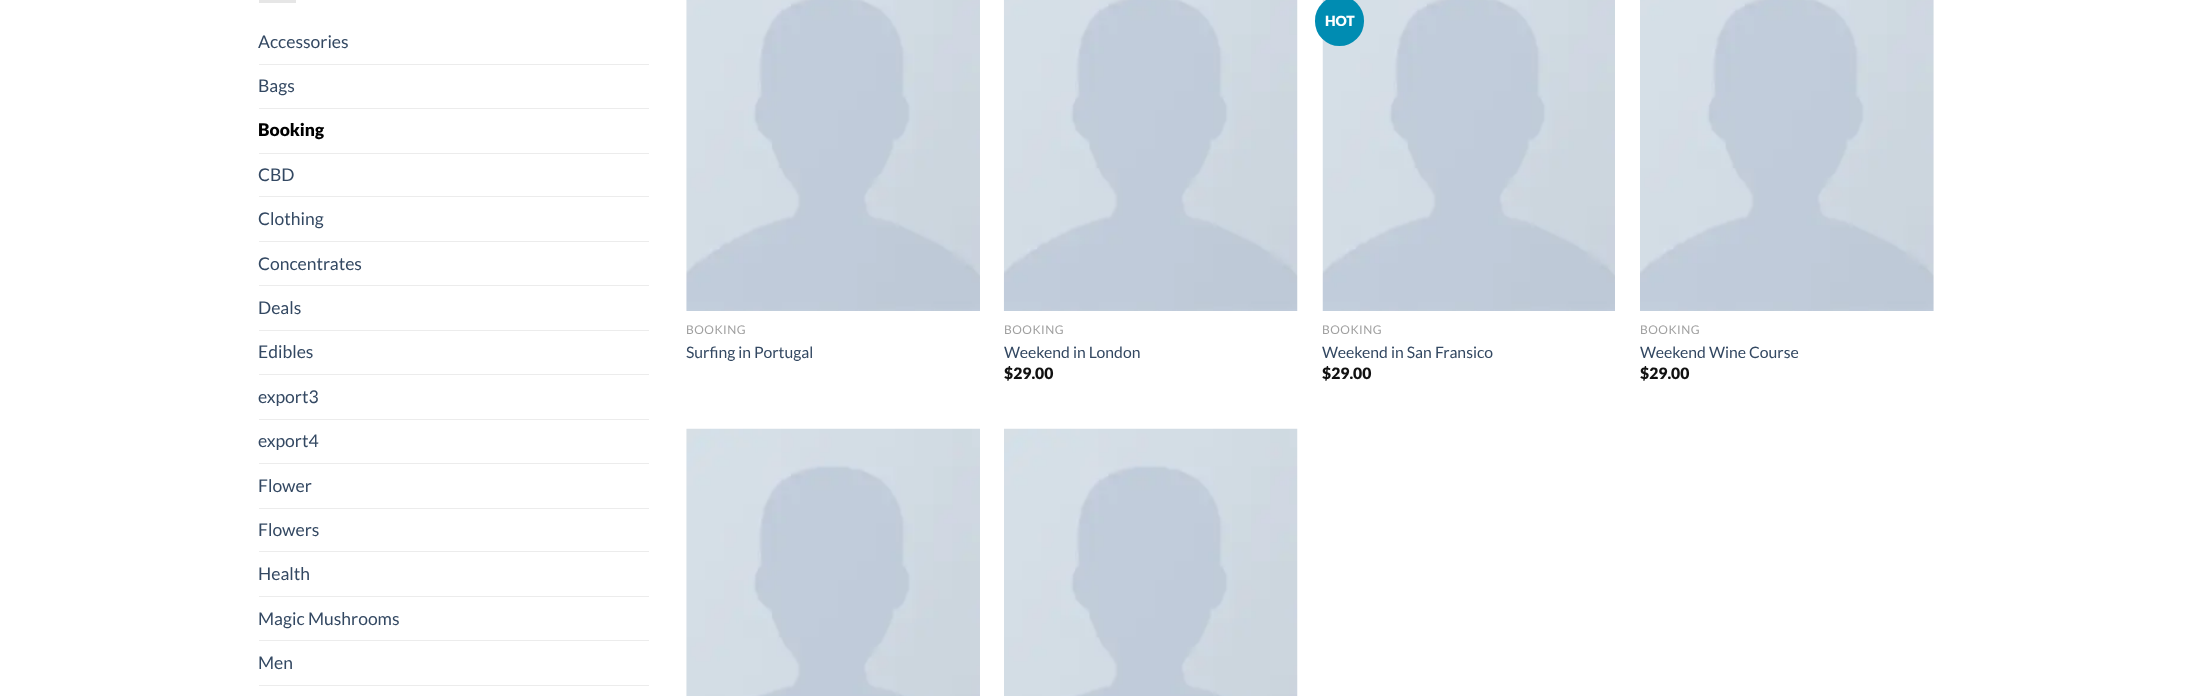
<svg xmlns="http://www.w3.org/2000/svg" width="2191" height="696">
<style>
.a{font:17.5px Lato;fill:#334862}
.b{font:900 17.5px Lato;fill:#000}
.c{font:12px Lato;letter-spacing:0.5px;fill:#a0a0a0}
.d{font:15.75px Lato;fill:#334862}
.e{font:900 15.75px Lato;fill:#111}
.f{font:900 14px Lato;fill:#fff}
</style>
<rect width="100%" height="100%" fill="#fff"/>
<path fill="#e6e6e6" d="M259 0h37v3H259z"/>
<path fill="#ececec" d="M259 64h390v1H259z"/>
<path fill="#ececec" d="M259 108h390v1H259z"/>
<path fill="#ececec" d="M259 153h390v1H259z"/>
<path fill="#ececec" d="M259 196h390v1H259z"/>
<path fill="#ececec" d="M259 241h390v1H259z"/>
<path fill="#ececec" d="M259 285h390v1H259z"/>
<path fill="#ececec" d="M259 330h390v1H259z"/>
<path fill="#ececec" d="M259 374h390v1H259z"/>
<path fill="#ececec" d="M259 419h390v1H259z"/>
<path fill="#ececec" d="M259 463h390v1H259z"/>
<path fill="#ececec" d="M259 508h390v1H259z"/>
<path fill="#ececec" d="M259 551h390v1H259z"/>
<path fill="#ececec" d="M259 596h390v1H259z"/>
<path fill="#ececec" d="M259 640h390v1H259z"/>
<path fill="#ececec" d="M259 685h390v1H259z"/>
<image href="1.png" x="686" y="0" width="294" height="311"/>
<image href="2.png" x="1003" y="0" width="295" height="311"/>
<image href="3.png" x="1322" y="0" width="293" height="311"/>
<rect fill="#008cb2" x="1315" y="-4" width="49" height="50" rx="24.5"/>
<image href="4.png" x="1640" y="0" width="294" height="311"/>
<image href="5.png" x="686" y="428" width="294" height="268"/>
<image href="6.png" x="1004" y="428" width="294" height="268"/>
<text class="a" x="258" y="48">Accessories</text>
<text class="a" x="258" y="92">Bags</text>
<text class="b" x="258" y="136">Booking</text>
<text class="a" x="258" y="181">CBD</text>
<text class="a" x="258" y="225">Clothing</text>
<text class="a" x="258" y="270">Concentrates</text>
<text class="a" x="258" y="314">Deals</text>
<text class="a" x="258" y="358">Edibles</text>
<text class="a" x="258" y="403">export3</text>
<text class="a" x="258" y="447">export4</text>
<text class="a" x="258" y="492">Flower</text>
<text class="a" x="258" y="536">Flowers</text>
<text class="a" x="258" y="580">Health</text>
<text class="a" x="258" y="625">Magic Mushrooms</text>
<text class="a" x="258" y="669">Men</text>
<text class="c" x="686" y="334">BOOKING</text>
<text class="d" x="686" y="358">Surfing in Portugal</text>
<text class="c" x="1004" y="334">BOOKING</text>
<text class="d" x="1004" y="358">Weekend in London</text>
<text class="e" x="1004" y="379">$29.00</text>
<text class="f" x="1325" y="26">HOT</text>
<text class="c" x="1322" y="334">BOOKING</text>
<text class="d" x="1322" y="358">Weekend in San Fransico</text>
<text class="e" x="1322" y="379">$29.00</text>
<text class="c" x="1640" y="334">BOOKING</text>
<text class="d" x="1640" y="358">Weekend Wine Course</text>
<text class="e" x="1640" y="379">$29.00</text>
</svg>
